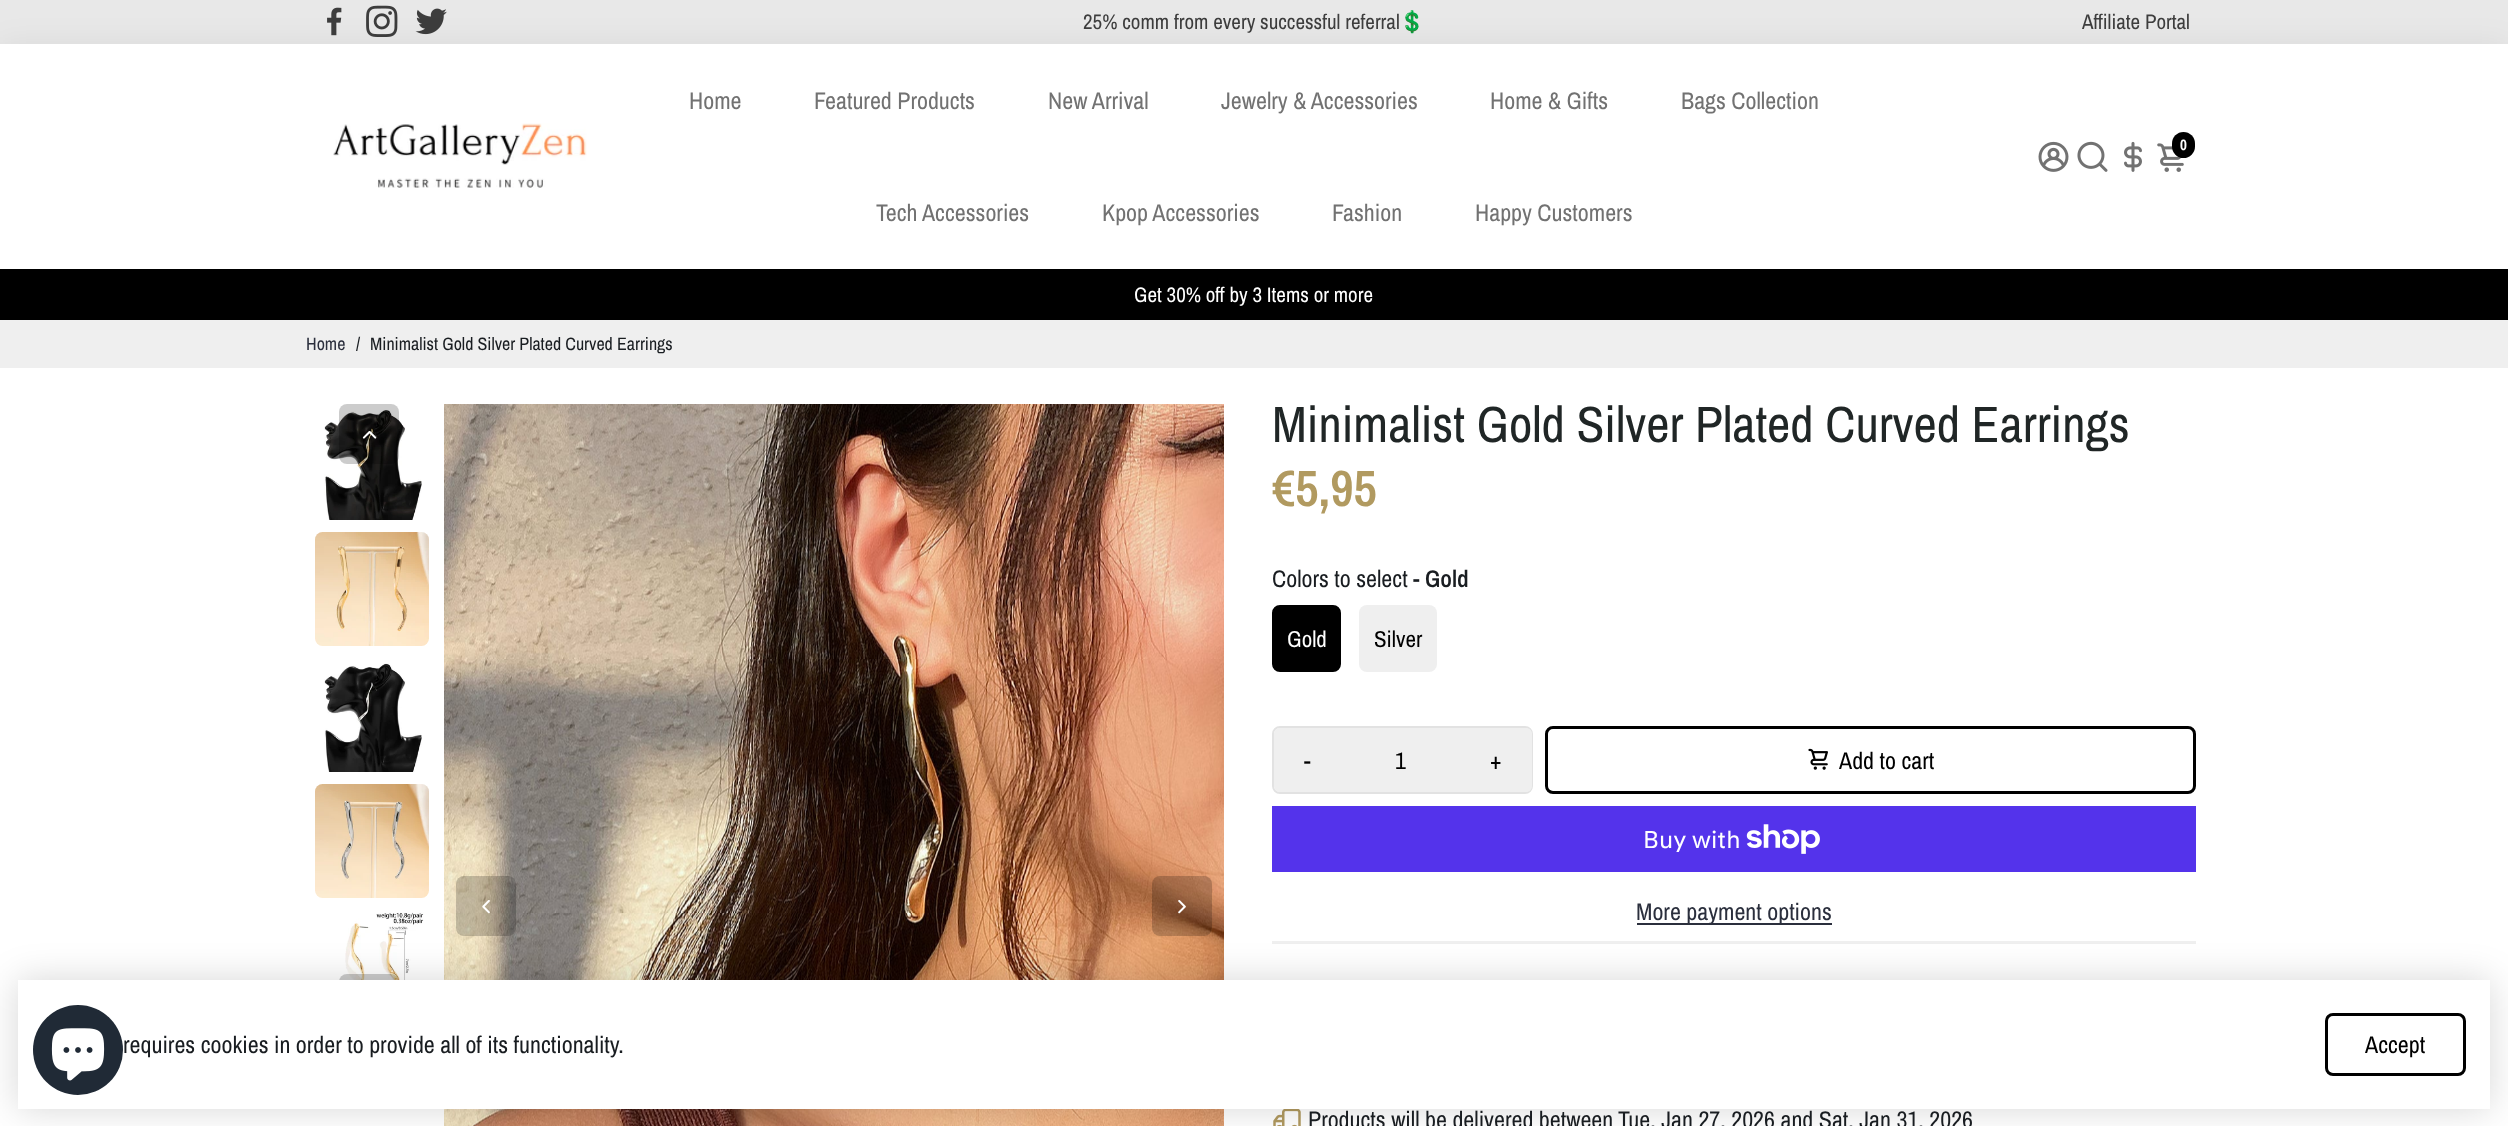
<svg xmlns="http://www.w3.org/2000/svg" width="2508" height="1126">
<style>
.a{font:21px Archivo Narrow;fill:#3d3d3d}
.b{font:21px Noto Color Emoji;fill:#3d3d3d}
.c{font:24px Archivo Narrow;fill:#727272}
.d{font:bold 15px Archivo Narrow;fill:#fff}
.e{font:21px Archivo Narrow;fill:#fff}
.f{font:18px Archivo Narrow;fill:#2b2f3d}
.g{font:18px Archivo Narrow;fill:#191d21}
.h{font:51px Archivo Narrow;fill:#202626}
.i{font:600 51px Archivo Narrow;fill:#b19a60}
.j{font:24px Archivo Narrow;fill:#191d21}
.k{font:600 24px Archivo Narrow;fill:#191d21}
.l{font:23px Archivo Narrow;fill:#fff}
.m{font:23px Archivo Narrow;fill:#000}
.n{font:24px Archivo Narrow;fill:#000}
.o{font:24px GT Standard;fill:#fff}
.p{font:24px Archivo Narrow;fill:#2b2f3d}
</style>
<rect width="100%" height="100%" fill="#fff"/>
<image href="11.png" x="444" y="404" width="780" height="722"/>
<rect fill="#00000033" x="456" y="876" width="60" height="60" rx="8"/>
<rect fill="#00000033" x="1152" y="876" width="60" height="60" rx="8"/>
<image href="18.png" x="345" y="912" width="79" height="68"/>
<rect fill="#00000033" x="339" y="974" width="60" height="60" rx="8"/>
<path fill="#efefef" d="M1272 941h924v3H1272z"/>
<image href="21.png" x="1273" y="1109" width="28" height="17"/>
<path fill="#00000029" filter="blur(18px)" d="M18 980h2472v129H18z"/>
<path fill="#fff" d="M18 980h2472v129H18z"/>
<circle fill="#202a36" cx="78" cy="1050" r="45"/>
<image href="1.png" x="51" y="1028" width="54" height="53"/>
<path fill="#e8e8e8" d="M0 0h2508v44H0z"/>
<image href="2.png" x="327" y="7" width="15" height="29"/>
<image href="3.png" x="366" y="5" width="32" height="32"/>
<image href="4.png" x="415" y="8" width="32" height="27"/>
<path fill="#000" d="M0 269h2508v51H0z"/>
<path fill="#0000000f" filter="blur(15px)" d="M0 44h2508v225H0z"/>
<path fill="#fff" d="M0 44h2508v225H0z"/>
<image href="5.png" x="333" y="123" width="254" height="65"/>
<image href="6.png" x="2038" y="141" width="31" height="31"/>
<image href="7.png" x="2077" y="141" width="31" height="31"/>
<image href="8.png" x="2124" y="141" width="18" height="31"/>
<image href="9.png" x="2157" y="143" width="27" height="29"/>
<rect fill="#000" x="2172" y="132" width="23" height="26" rx="11.5"/>
<path fill="#efefef" d="M0 320h2508v48H0z"/>
<image href="14.png" x="324" y="410" width="98" height="110"/>
<rect fill="#00000033" x="339" y="404" width="60" height="60" rx="8"/>
<image href="10.png" x="362" y="431" width="15" height="8"/>
<image href="12.png" x="482" y="900" width="8" height="14"/>
<image href="13.png" x="1178" y="900" width="8" height="14"/>
<image href="15.png" x="315" y="532" width="114" height="114"/>
<image href="16.png" x="324" y="663" width="98" height="109"/>
<image href="17.png" x="315" y="784" width="114" height="114"/>
<rect fill="#000" stroke="#000" stroke-width="3" x="1273.5" y="606.5" width="66" height="64" rx="6.5"/>
<rect fill="#efefef" x="1359" y="605" width="78" height="67" rx="8"/>
<rect fill="none" stroke="#e2e2e2" stroke-width="2" x="1273" y="727" width="259" height="66" rx="7"/>
<path fill="#efefef" d="M1280 728h60v64h-60c-3.5 0-6-2.5-6-6v-52c0-3.5 2.5-6 6-6z"/>
<path fill="#efefef" d="M1340 728h120v64H1340z"/>
<path fill="#efefef" d="M1460 728h66c3.5 0 6 2.5 6 6v52c0 3.5-2.5 6-6 6h-66z"/>
<rect fill="none" stroke="#000" stroke-width="3" x="1546.5" y="727.5" width="648" height="65" rx="6.5"/>
<image href="19.png" x="1808" y="748" width="20" height="22"/>
<path fill="#5433eb" d="M1272 806h924v66H1272z"/>
<image href="20.png" x="1746" y="824" width="74" height="30"/>
<path fill="#2b2f3d" d="M1637 923h195v2H1637z"/>
<rect fill="none" stroke="#000" stroke-width="3" x="2326.5" y="1014.5" width="138" height="60" rx="6.5"/>
<text class="a" x="1083" y="29">25% comm from every successful referral</text>
<text class="b" x="1399" y="29">💲</text>
<text class="a" x="2082" y="29">Affiliate Portal</text>
<text class="c" x="689" y="109">Home</text>
<text class="c" x="814" y="109">Featured Products</text>
<text class="c" x="1048" y="109">New Arrival</text>
<text class="c" x="1221" y="109">Jewelry &amp; Accessories</text>
<text class="c" x="1490" y="109">Home &amp; Gifts</text>
<text class="c" x="1681" y="109">Bags Collection</text>
<text class="c" x="876" y="221">Tech Accessories</text>
<text class="c" x="1102" y="221">Kpop Accessories</text>
<text class="c" x="1332" y="221">Fashion</text>
<text class="c" x="1475" y="221">Happy Customers</text>
<text class="d" x="2180" y="150">0</text>
<text class="e" x="1134" y="302">Get 30% off by 3 Items or more</text>
<text class="f" x="306" y="350">Home</text>
<text class="g" x="356" y="350">/</text>
<text class="g" x="370" y="350">Minimalist Gold Silver Plated Curved Earrings</text>
<text class="h" x="1272" y="442">Minimalist Gold Silver Plated Curved Earrings</text>
<text class="i" x="1272" y="506">€5,95</text>
<text class="j" x="1272" y="587">Colors to select</text>
<text class="k" x="1413" y="587">- Gold</text>
<text class="l" x="1287" y="647">Gold</text>
<text class="m" x="1374" y="647">Silver</text>
<text class="n" x="1304" y="769">-</text>
<text class="n" x="1395" y="769">1</text>
<text class="n" x="1490" y="769">+</text>
<text class="n" x="1839" y="769">Add to cart</text>
<text class="o" x="1643" y="848">Buy with</text>
<text class="p" x="1636" y="920">More payment options</text>
<text class="j" x="1308" y="1128">Products will be delivered between</text>
<text class="j" x="1618" y="1128">Tue, Jan 27, 2026 and Sat, Jan 31, 2026</text>
<text class="j" x="123" y="1053">requires cookies in order to provide all of its functionality.</text>
<text class="n" x="2365" y="1053">Accept</text>
</svg>
